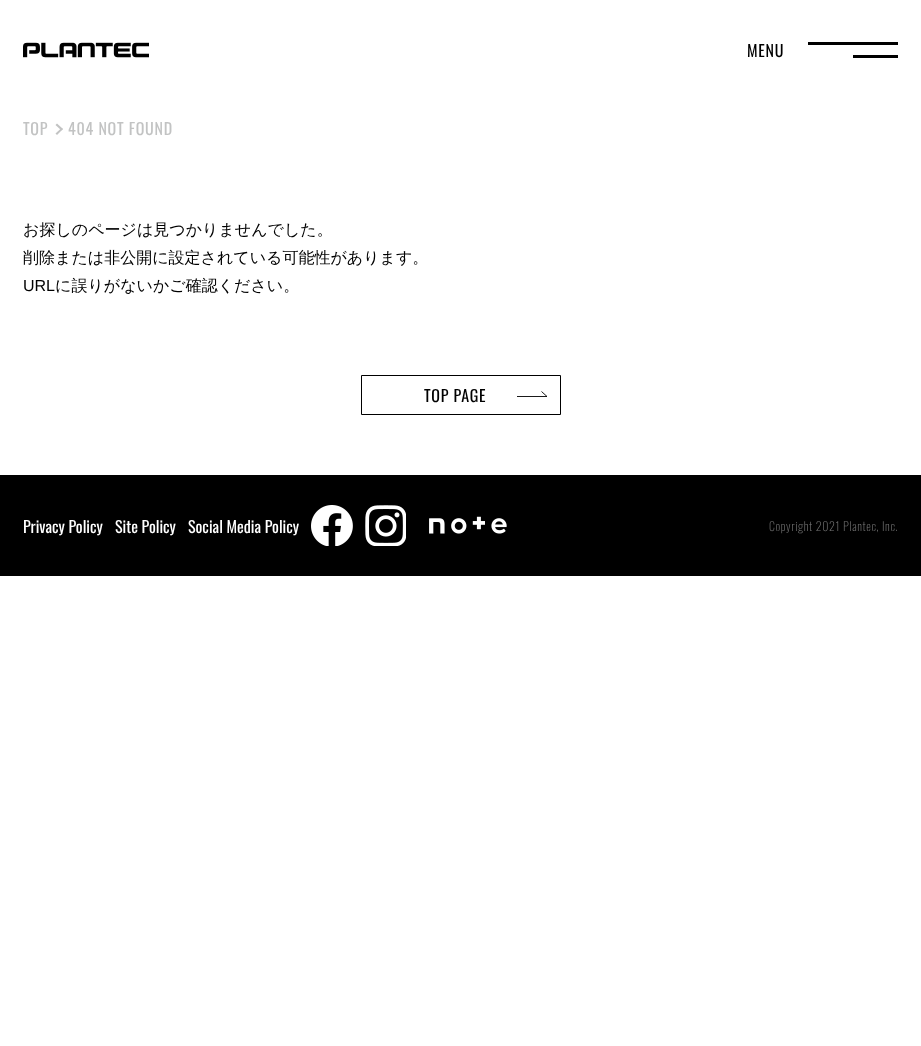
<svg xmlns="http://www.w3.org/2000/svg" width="921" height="1046">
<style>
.a{font:16px Oswald;letter-spacing:0.75px;fill:#000}
.b{font:16px Oswald;letter-spacing:0.75px;fill:#c2c3c3}
.c{font:500 16px WenQuanYi Zen Hei;fill:#000}
.d{font:16px Liberation Sans;fill:#000}
.e{font:16px Oswald;fill:#fff}
.f{font:200 12px Oswald;letter-spacing:0.6px;fill:#787878}
</style>
<rect width="100%" height="100%" fill="#fff"/>
<image href="1.png" x="23" y="42" width="126" height="16"/>
<path fill="#000" d="M808 42h90v3H808z"/>
<path fill="#000" d="M853 55h45v3H853z"/>
<path fill="#c2c3c3" d="M57 123.5l6 5.5l-1.5 1.5l-6-5.5z"/>
<path fill="#c2c3c3" d="M61.5 128l1.5 1l-6 6l-1.5-1.5z"/>
<path fill="none" stroke="#000" d="M361.5 375.5h199v39H361.5z"/>
<path fill="none" stroke="#000" stroke-width="0.9" d="M541.5 391.5l5.5 5h-30"/>
<path fill="#000" d="M0 475h921v101H0z"/>
<image href="2.png" x="311" y="505" width="42" height="41"/>
<image href="3.png" x="365" y="505" width="41" height="41"/>
<image href="4.png" x="429" y="516" width="78" height="18"/>
<text class="a" x="747" y="57">MENU</text>
<text class="b" x="23" y="135">TOP</text>
<text class="b" x="68" y="135">404 NOT FOUND</text>
<text class="c" x="23" y="235">お探しのページは見つかりませんでした。</text>
<text class="c" x="23" y="263">削除または非公開に設定されている可能性があります。</text>
<text class="d" x="23" y="291">URL</text>
<text class="c" x="55" y="291">に誤りがないかご確認ください。</text>
<text class="a" x="424" y="402">TOP PAGE</text>
<text class="e" x="23" y="533">Privacy Policy</text>
<text class="e" x="115" y="533">Site Policy</text>
<text class="e" x="188" y="533">Social Media Policy</text>
<text class="f" x="769" y="531">Copyright 2021 Plantec, Inc.</text>
</svg>
